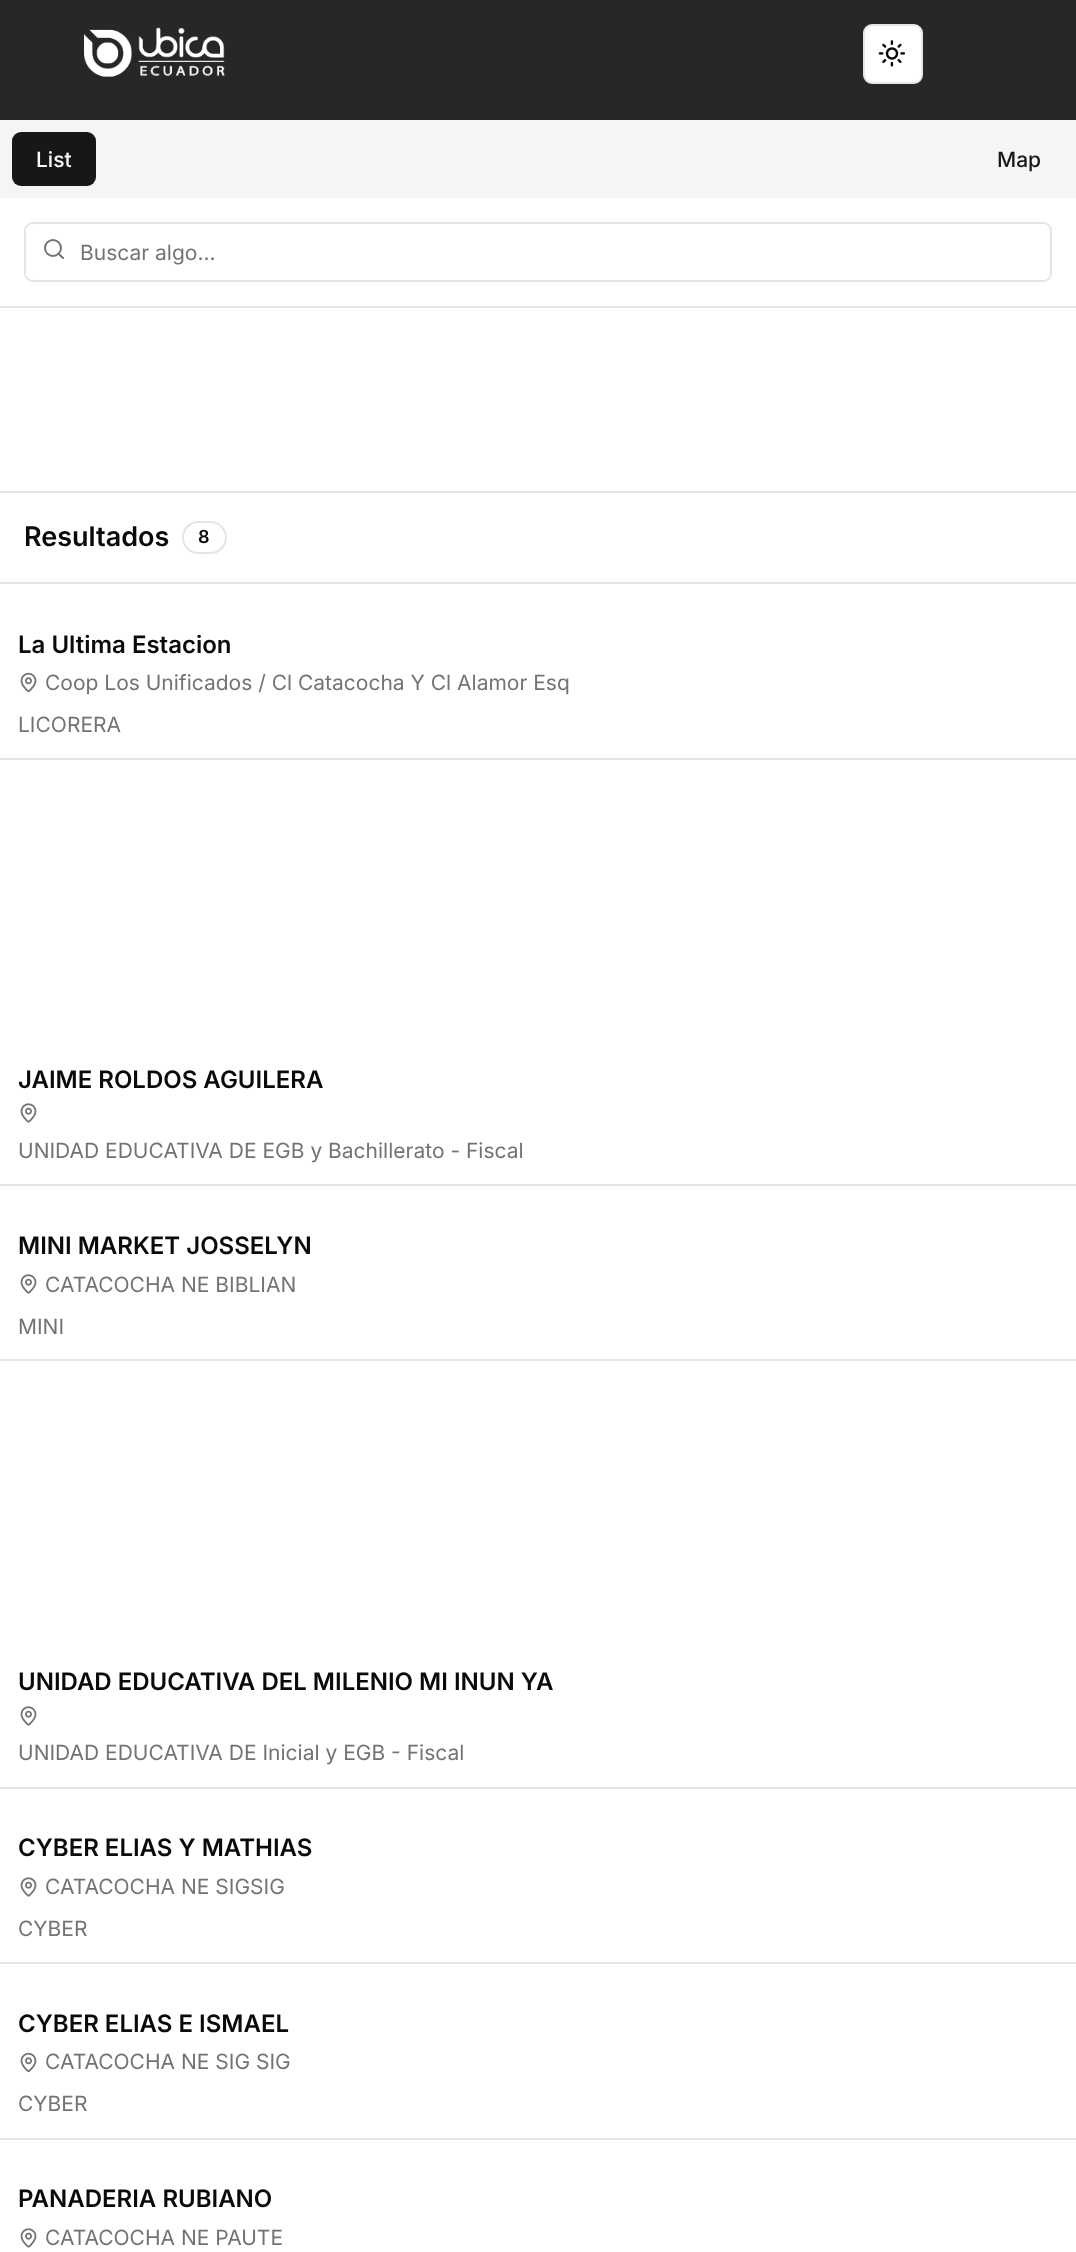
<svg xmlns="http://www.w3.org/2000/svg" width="1076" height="2252">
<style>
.a{font:500 21px Inter;fill:#fafafa}
.b{font:500 21px Inter;fill:#171717}
.c{font:21px Inter;fill:#737373}
.d{font:600 27px Inter;fill:#0a0a0a}
.e{font:600 18px Inter;fill:#0a0a0a}
.f{font:600 24px Inter;fill:#0a0a0a}
</style>
<rect width="100%" height="100%" fill="#fff"/>
<path fill="#27272a" d="M0 0h1076v120H0z"/>
<image href="1.png" x="84" y="27" width="141" height="51"/>
<rect fill="#fff" stroke="#e5e5e5" stroke-width="2" x="864" y="25" width="58" height="58" rx="8"/>
<image href="2.png" x="878" y="40" width="28" height="27"/>
<path fill="#f5f5f5" d="M0 120h1076v78H0z"/>
<rect fill="#171717" x="12" y="132" width="84" height="54" rx="9"/>
<path fill="#e5e5e5" d="M0 306h1076v2H0z"/>
<rect fill="none" stroke="#e5e5e5" stroke-width="2" x="25" y="223" width="1026" height="58" rx="8"/>
<circle fill="none" stroke="#737373" stroke-width="2" cx="53" cy="248" r="8"/>
<path fill="none" stroke="#737373" stroke-width="2" stroke-linecap="round" stroke-linejoin="round" d="M63 258l-4.5-4.5"/>
<path fill="#e5e5e5" d="M0 491h1076v2H0z"/>
<path fill="#e5e5e5" d="M0 582h1076v2H0z"/>
<rect fill="none" stroke="#e5e5e5" stroke-width="2" x="183" y="522" width="43" height="31" rx="15.5"/>
<image href="3.png" x="20" y="672" width="17" height="21"/>
<path fill="#e5e5e5" d="M0 758h1076v2H0z"/>
<image href="4.png" x="20" y="1103" width="17" height="20"/>
<path fill="#e5e5e5" d="M0 1184h1076v2H0z"/>
<image href="4.png" x="20" y="1274" width="17" height="20"/>
<path fill="#e5e5e5" d="M0 1359h1076v2H0z"/>
<image href="4.png" x="20" y="1706" width="17" height="20"/>
<path fill="#e5e5e5" d="M0 1787h1076v2H0z"/>
<image href="4.png" x="20" y="1877" width="17" height="20"/>
<path fill="#e5e5e5" d="M0 1962h1076v2H0z"/>
<image href="3.png" x="20" y="2052" width="17" height="21"/>
<path fill="#e5e5e5" d="M0 2138h1076v2H0z"/>
<image href="4.png" x="20" y="2228" width="17" height="20"/>
<text class="a" x="36" y="167">List</text>
<text class="b" x="997" y="167">Map</text>
<text class="c" x="80" y="260">Buscar algo...</text>
<text class="d" x="24" y="546">Resultados</text>
<text class="e" x="198" y="543">8</text>
<text class="f" x="18" y="653">La Ultima Estacion</text>
<text class="c" x="45" y="690">Coop Los Unificados / Cl Catacocha Y Cl Alamor Esq</text>
<text class="c" x="18" y="732">LICORERA</text>
<text class="f" x="18" y="1088">JAIME ROLDOS AGUILERA</text>
<text class="c" x="18" y="1158">UNIDAD EDUCATIVA DE EGB y Bachillerato - Fiscal</text>
<text class="f" x="18" y="1254">MINI MARKET JOSSELYN</text>
<text class="c" x="45" y="1292">CATACOCHA NE BIBLIAN</text>
<text class="c" x="18" y="1334">MINI</text>
<text class="f" x="18" y="1690">UNIDAD EDUCATIVA DEL MILENIO MI INUN YA</text>
<text class="c" x="18" y="1760">UNIDAD EDUCATIVA DE Inicial y EGB - Fiscal</text>
<text class="f" x="18" y="1856">CYBER ELIAS Y MATHIAS</text>
<text class="c" x="45" y="1894">CATACOCHA NE SIGSIG</text>
<text class="c" x="18" y="1936">CYBER</text>
<text class="f" x="18" y="2032">CYBER ELIAS E ISMAEL</text>
<text class="c" x="45" y="2069">CATACOCHA NE SIG SIG</text>
<text class="c" x="18" y="2111">CYBER</text>
<text class="f" x="18" y="2207">PANADERIA RUBIANO</text>
<text class="c" x="45" y="2245">CATACOCHA NE PAUTE</text>
</svg>
